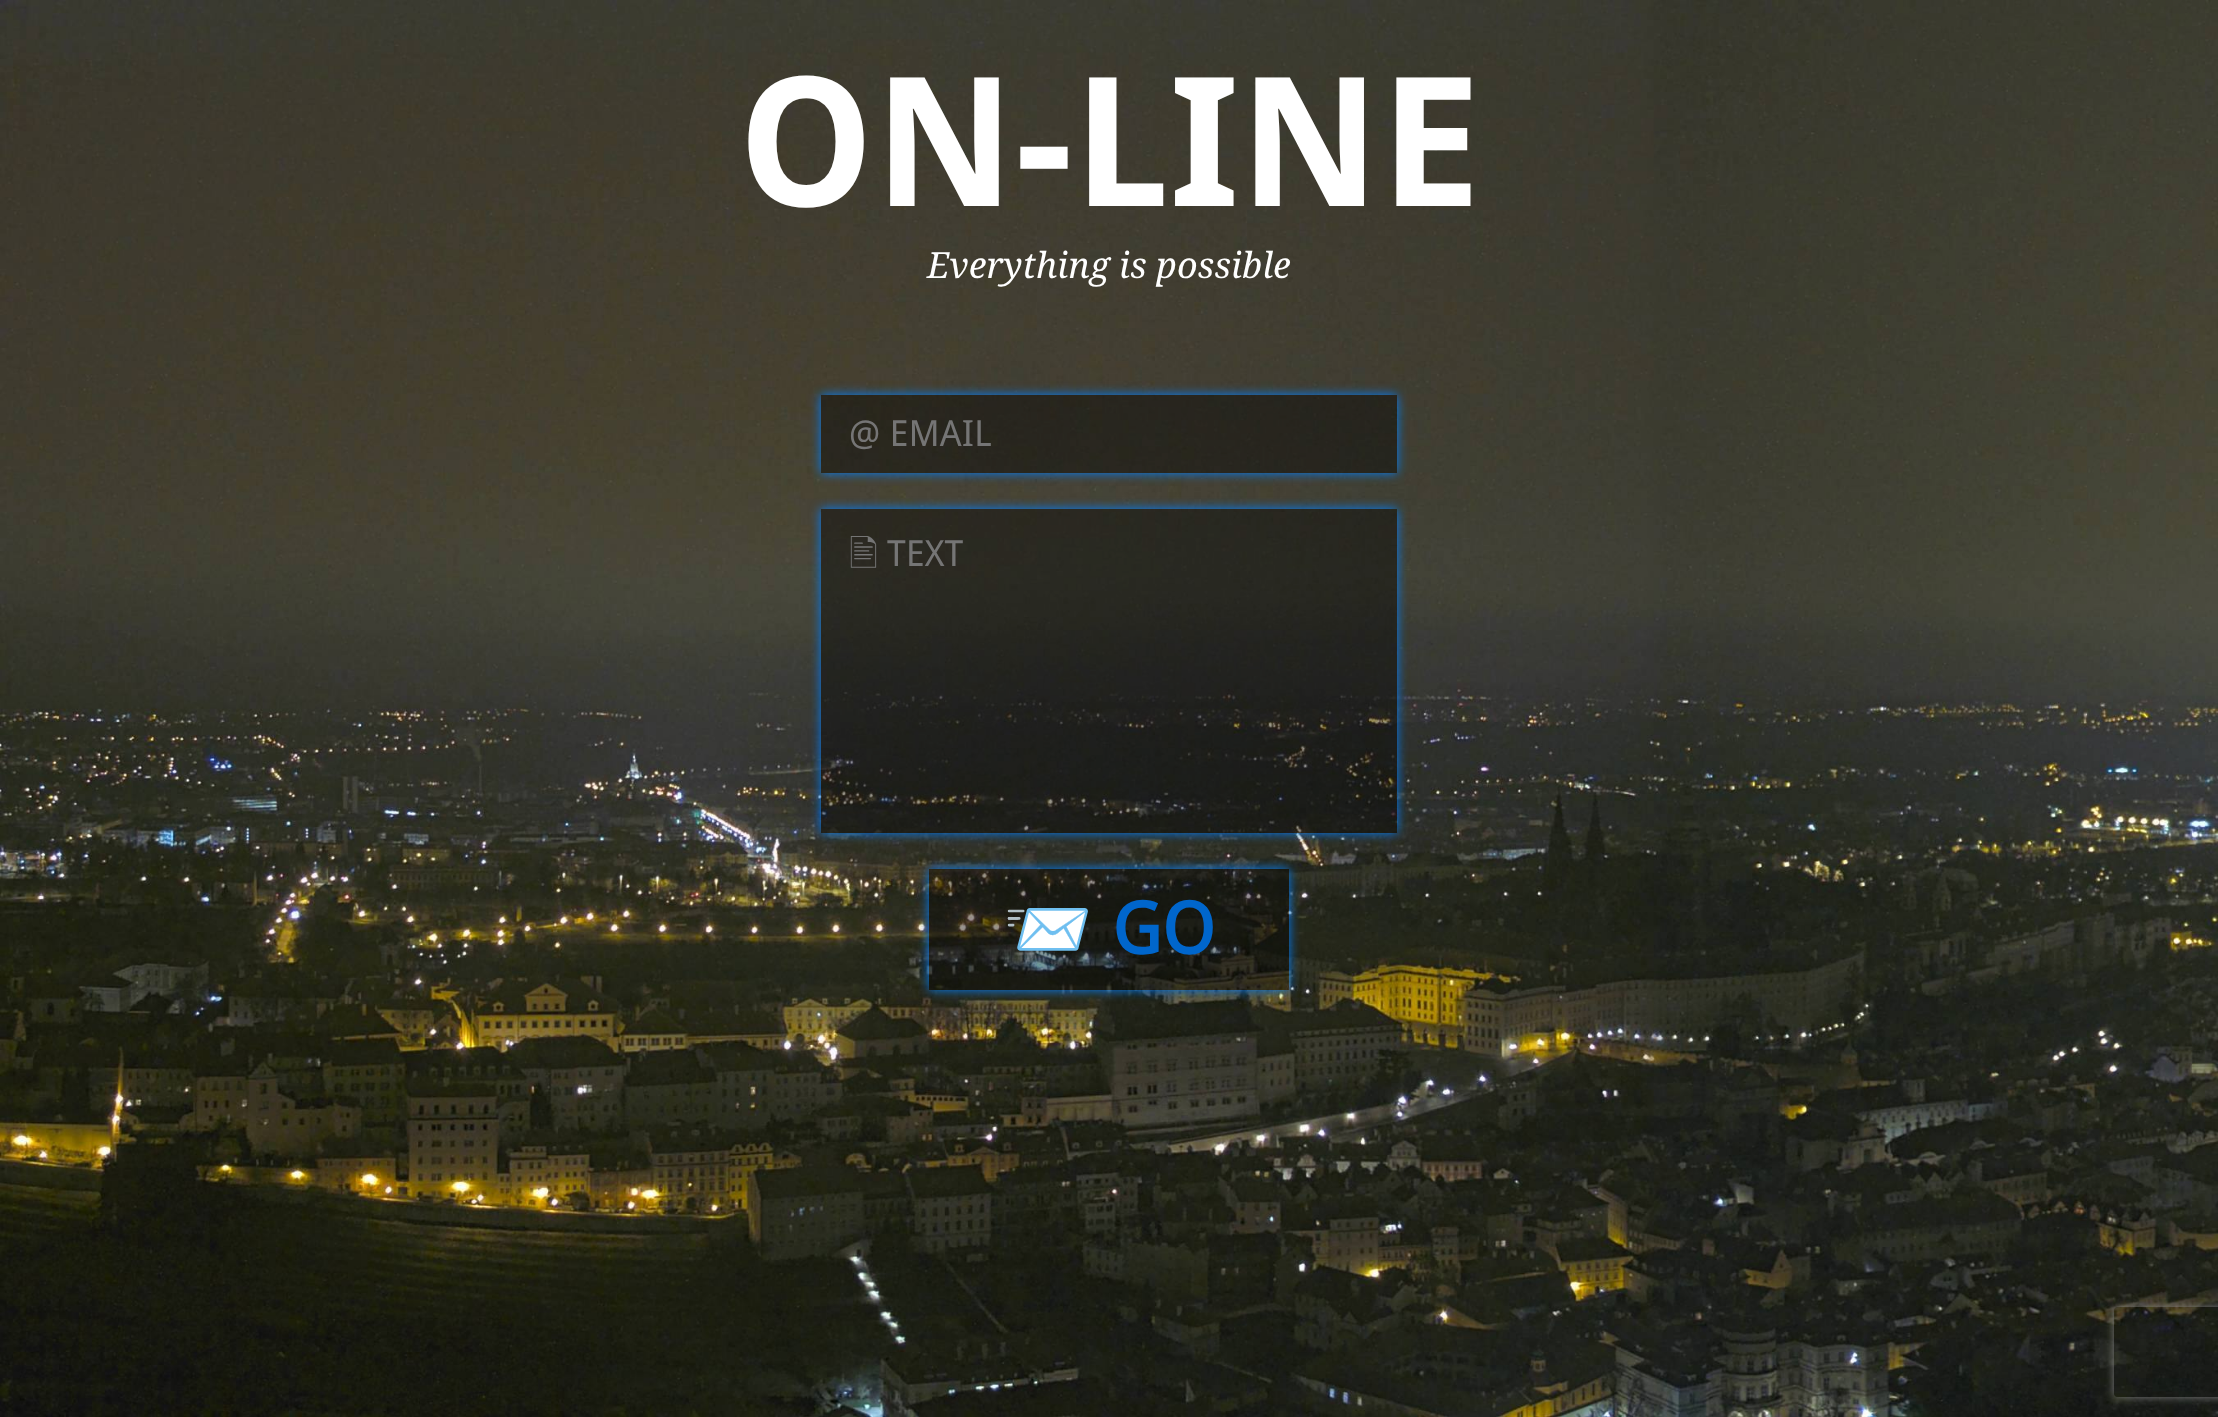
<svg xmlns="http://www.w3.org/2000/svg" width="2218" height="1417">
<style>*{font-kerning:none!important;font-variant-ligatures:none!important}</style>
<style>
.a{font:bold 180px Droid Sans;fill:#fff}
.b{font:italic 36px Droid Serif;fill:#fff}
.c{font:36px Droid Sans;fill:#757575}
.d{font:36px 'Noto Sans Symbols 2';fill:#757575}
.e{font:bold 72px Noto Color Emoji;fill:#06c}
.f{font:bold 72px 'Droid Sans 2';fill:#06c}
</style>
<defs>
<clipPath id="clip1"><path d="M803 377h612v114h-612zm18 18h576v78h-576z" clip-rule="evenodd"/></clipPath>
<clipPath id="clip2"><path d="M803 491h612v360h-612zm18 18h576v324h-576z" clip-rule="evenodd"/></clipPath>
<clipPath id="clip3"><path d="M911 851h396v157h-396zm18 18h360v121h-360z" clip-rule="evenodd"/></clipPath>
<clipPath id="clip4"><path d="M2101 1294h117v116h-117zm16 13h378c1.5 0 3 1.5 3 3v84c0 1.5-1.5 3-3 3h-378c-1.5 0-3-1.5-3-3v-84c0-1.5 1.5-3 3-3z" clip-rule="evenodd"/></clipPath>
</defs>
<rect width="100%" height="100%" fill="#fff"/>
<image href="1.png" x="0" y="0" width="2218" height="1417"/>
<g clip-path="url(#clip1)">
<path fill="#0080ff" filter="blur(5.5px)" d="M821 395h576v78H821z"/>
</g>
<path fill="#00000066" d="M821 395h576v78H821z"/>
<g clip-path="url(#clip2)">
<path fill="#0080ff" filter="blur(5.5px)" d="M821 509h576v324H821z"/>
</g>
<path fill="#00000066" d="M821 509h576v324H821z"/>
<g clip-path="url(#clip3)">
<path fill="#0080ff" filter="blur(5.5px)" d="M929 869h360v121H929z"/>
</g>
<path fill="#00000066" d="M929 869h360v121H929z"/>
<g clip-path="url(#clip4)">
<rect fill="#808080" filter="blur(4px)" x="2114" y="1307" width="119" height="90" rx="3"/>
</g>
<text class="a" x="738" y="206">ON-LINE</text>
<text class="b" x="927" y="278">Everything is possible</text>
<text class="c" x="849" y="446">@ EMAIL</text>
<text class="d" x="849" y="566">🖹</text>
<text class="c" x="887" y="566">TEXT</text>
<text class="e" x="1003" y="954">📨</text>
<text class="f" x="1112" y="954">GO</text>
</svg>
